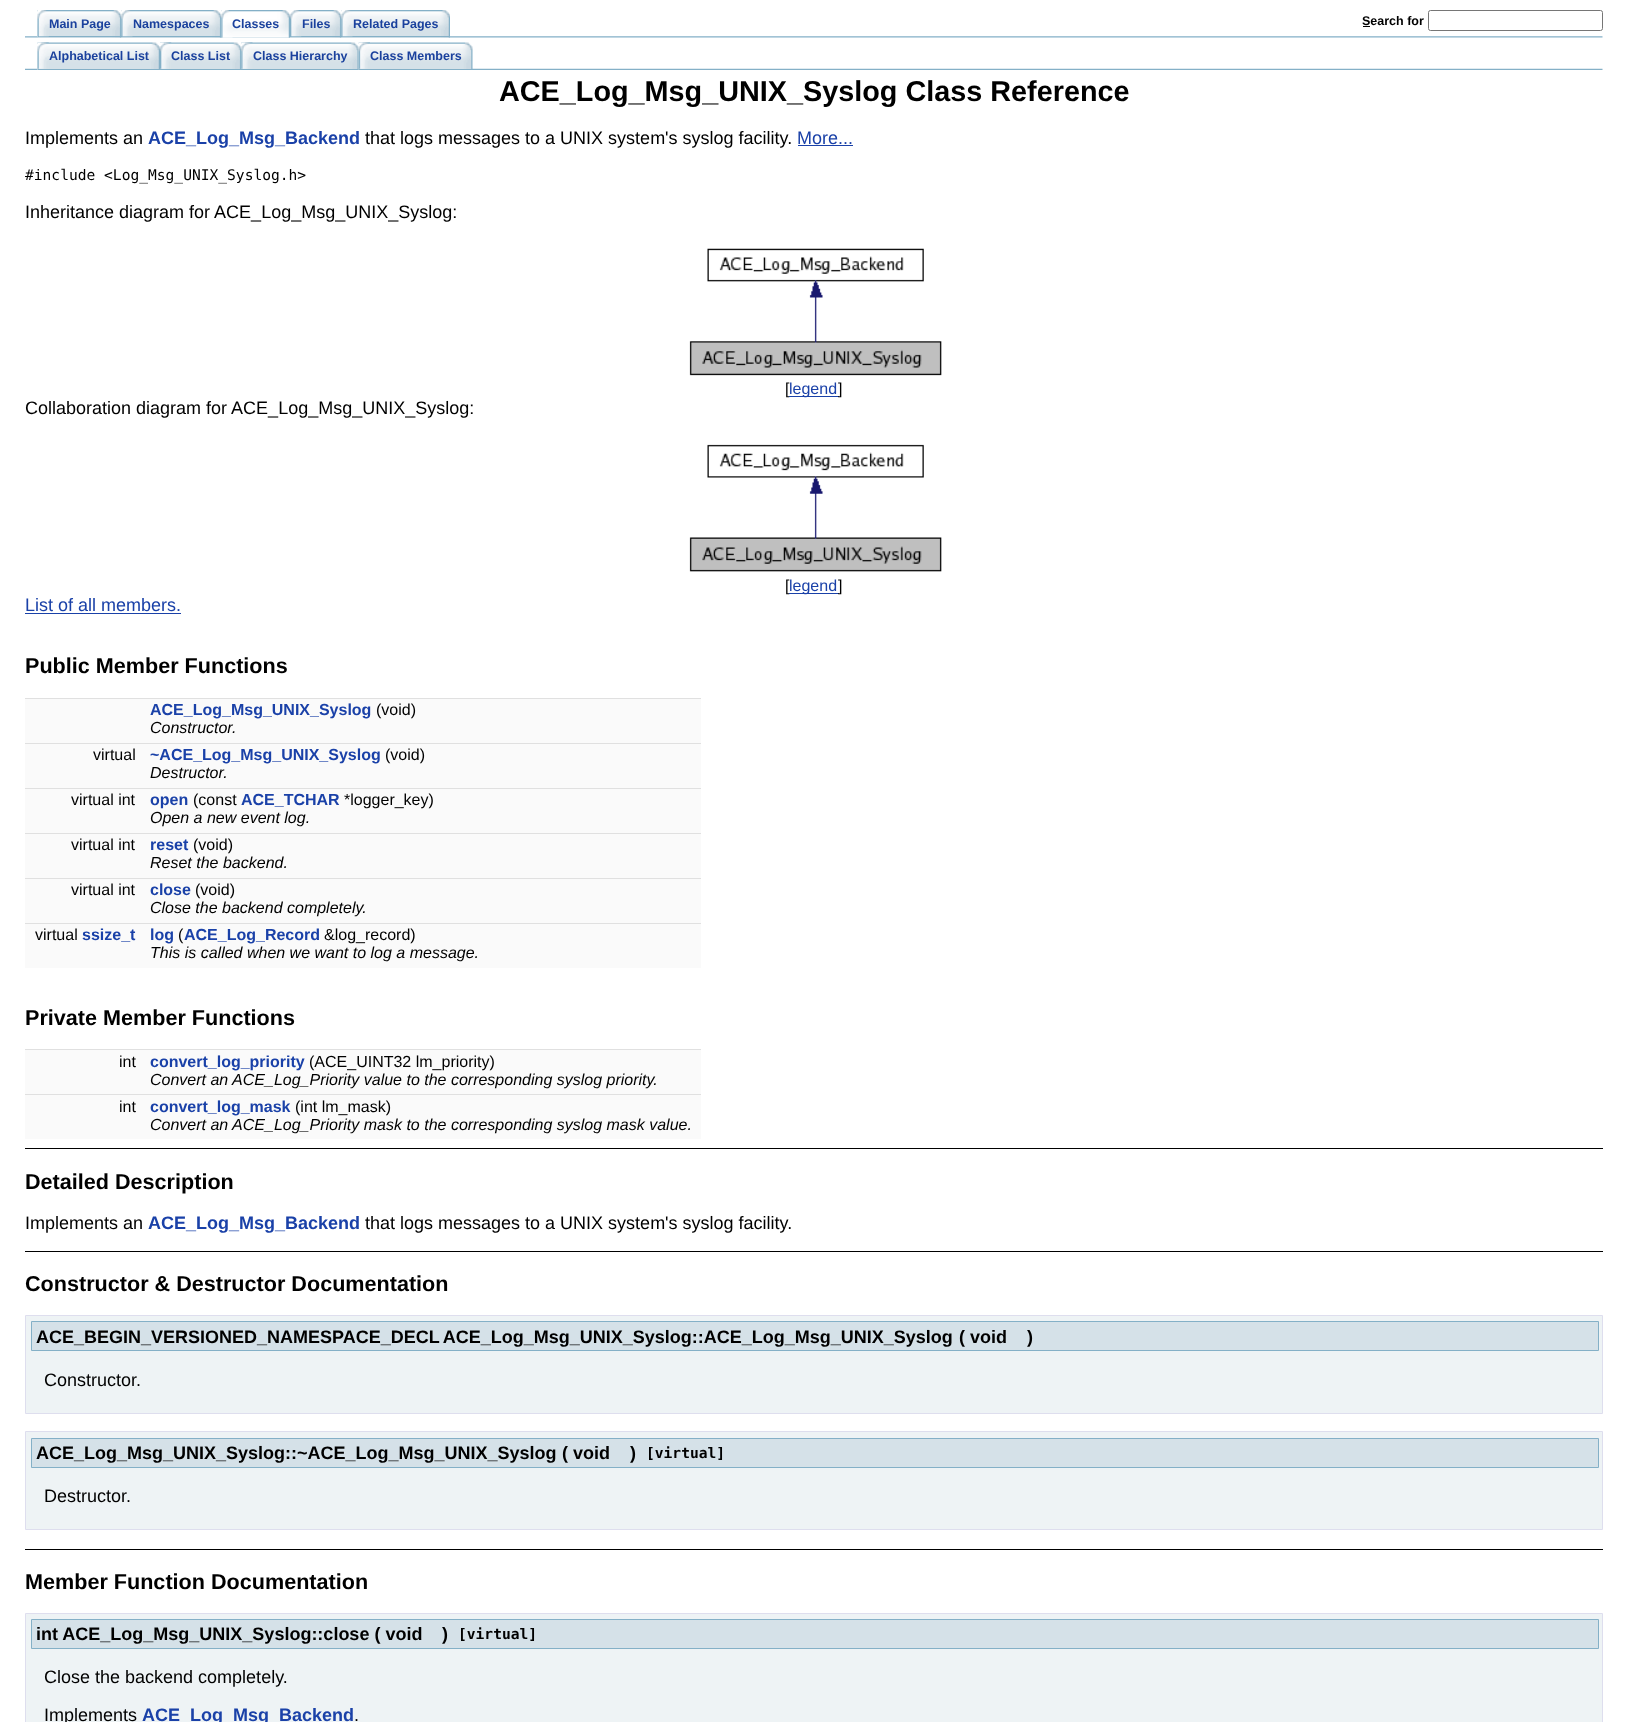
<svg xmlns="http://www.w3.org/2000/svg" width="1627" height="1722">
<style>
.a{font:bold 12.5px Liberation Sans;fill:#1a419d}
.b{font:bold 12.5px Liberation Sans;fill:#000}
.c{font:bold 28.8px Liberation Sans;fill:#000}
.d{font:18px Liberation Sans;fill:#000}
.e{font:bold 18px Liberation Sans;fill:#1a41a8}
.f{font:18px Liberation Sans;fill:#1a41a8}
.g{font:14.6px DejaVu Sans Mono;fill:#000}
.h{font:16px Liberation Sans;fill:#000}
.i{font:16px Liberation Sans;fill:#1a41a8}
.j{font:bold 21.6px Liberation Sans;fill:#000}
.k{font:bold 16px Liberation Sans;fill:#1a41a8}
.l{font:italic 16px Liberation Sans;fill:#000}
.m{font:bold 18px Liberation Sans;fill:#000}
.n{font:bold 14.6px DejaVu Sans Mono;fill:#000}
</style>
<rect width="100%" height="100%" fill="#fff"/>
<image href="1.png" x="25" y="36" width="1578" height="2"/>
<image href="2.png" x="37" y="10" width="85" height="28"/>
<path fill="#84b0c7" d="M38 36h83v1H38z"/>
<image href="3.png" x="37" y="10" width="12" height="27"/>
<image href="4.png" x="121" y="10" width="101" height="28"/>
<path fill="#84b0c7" d="M121 36h100v1H121z"/>
<image href="5.png" x="121" y="10" width="12" height="27"/>
<image href="6.png" x="221" y="10" width="69" height="28"/>
<image href="7.png" x="221" y="10" width="12" height="28"/>
<image href="8.png" x="290" y="10" width="52" height="28"/>
<path fill="#84b0c7" d="M290 36h51v1H290z"/>
<image href="9.png" x="290" y="10" width="12" height="27"/>
<image href="10.png" x="341" y="10" width="109" height="28"/>
<path fill="#84b0c7" d="M341 36h109v1H341z"/>
<image href="5.png" x="341" y="10" width="12" height="27"/>
<path fill="#000" d="M1363 26h7v1H1363z"/>
<rect fill="none" stroke="#767676" x="1428.5" y="10.5" width="174" height="20" rx="2"/>
<image href="11.png" x="25" y="68" width="1578" height="2"/>
<image href="12.png" x="37" y="42" width="123" height="28"/>
<path fill="#84b0c7" d="M38 69h122v1H38z"/>
<image href="13.png" x="37" y="42" width="12" height="27"/>
<image href="14.png" x="160" y="42" width="82" height="27"/>
<image href="15.png" x="160" y="42" width="12" height="27"/>
<image href="16.png" x="241" y="42" width="118" height="27"/>
<image href="17.png" x="241" y="42" width="12" height="27"/>
<image href="18.png" x="358" y="42" width="115" height="28"/>
<path fill="#84b0c7" d="M359 69h114v1H359z"/>
<image href="19.png" x="358" y="42" width="12" height="27"/>
<path fill="#1a41a8" d="M798 145h55v1H798z"/>
<image href="20.png" x="689" y="248" width="253" height="128"/>
<image href="21.png" x="689" y="444" width="253" height="128"/>
<path fill="#1a41a8" d="M25 613h156v1H25z"/>
<path fill="#fafafa" d="M25 699h676v20H25z"/>
<path fill="#e0e0e0" d="M25 698h676v1H25z"/>
<path fill="#fafafa" d="M25 719h676v24H25z"/>
<path fill="#fafafa" d="M25 744h676v20H25z"/>
<path fill="#e0e0e0" d="M25 743h676v1H25z"/>
<path fill="#fafafa" d="M25 764h676v24H25z"/>
<path fill="#fafafa" d="M25 789h676v20H25z"/>
<path fill="#e0e0e0" d="M25 788h676v1H25z"/>
<path fill="#fafafa" d="M25 809h676v24H25z"/>
<path fill="#fafafa" d="M25 834h676v20H25z"/>
<path fill="#e0e0e0" d="M25 833h676v1H25z"/>
<path fill="#fafafa" d="M25 854h676v24H25z"/>
<path fill="#fafafa" d="M25 879h676v20H25z"/>
<path fill="#e0e0e0" d="M25 878h676v1H25z"/>
<path fill="#fafafa" d="M25 899h676v24H25z"/>
<path fill="#fafafa" d="M25 924h676v20H25z"/>
<path fill="#e0e0e0" d="M25 923h676v1H25z"/>
<path fill="#fafafa" d="M25 944h676v24H25z"/>
<path fill="#fafafa" d="M25 1050h676v20H25z"/>
<path fill="#e0e0e0" d="M25 1049h676v1H25z"/>
<path fill="#fafafa" d="M25 1070h676v24H25z"/>
<path fill="#fafafa" d="M25 1095h676v20H25z"/>
<path fill="#e0e0e0" d="M25 1094h676v1H25z"/>
<path fill="#fafafa" d="M25 1115h676v24H25z"/>
<path fill="#000" d="M25 1148h1578v1H25z"/>
<path fill="#000" d="M25 1251h1578v1H25z"/>
<path fill="#eef3f5" stroke="#dedeee" d="M25.5 1315.5h1577v98H25.5z"/>
<path fill="#d5e1e8" stroke="#84b0c7" d="M31.5 1321.5h1567v29H31.5z"/>
<path fill="#eef3f5" stroke="#dedeee" d="M25.5 1431.5h1577v98H25.5z"/>
<path fill="#d5e1e8" stroke="#84b0c7" d="M31.5 1438.5h1567v29H31.5z"/>
<path fill="#000" d="M25 1549h1578v1H25z"/>
<path fill="#eef3f5" stroke="#dedeee" d="M25.5 1613.5h1577v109H25.5z"/>
<path fill="#d5e1e8" stroke="#84b0c7" d="M31.5 1619.5h1567v29H31.5z"/>
<text class="a" x="49" y="28">Main Page</text>
<text class="a" x="133" y="28">Namespaces</text>
<text class="a" x="232" y="28">Classes</text>
<text class="a" x="302" y="28">Files</text>
<text class="a" x="353" y="28">Related Pages</text>
<text class="b" x="1362" y="25">Search for</text>
<text class="a" x="49" y="60">Alphabetical List</text>
<text class="a" x="171" y="60">Class List</text>
<text class="a" x="253" y="60">Class Hierarchy</text>
<text class="a" x="370" y="60">Class Members</text>
<text class="c" x="499" y="101">ACE_Log_Msg_UNIX_Syslog Class Reference</text>
<text class="d" x="25" y="144">Implements an</text>
<text class="e" x="148" y="144">ACE_Log_Msg_Backend</text>
<text class="d" x="365" y="144">that logs messages to a UNIX system's syslog facility.</text>
<text class="f" x="797" y="144">More...</text>
<text class="g" x="25" y="180">#include &lt;Log_Msg_UNIX_Syslog.h&gt;</text>
<text class="d" x="25" y="218">Inheritance diagram for ACE_Log_Msg_UNIX_Syslog:</text>
<text class="h" x="785" y="394">[</text>
<path fill="#1a41a8" d="M789 396h50v1H789z"/>
<text class="i" x="789" y="394">legend</text>
<text class="h" x="838" y="394">]</text>
<text class="d" x="25" y="414">Collaboration diagram for ACE_Log_Msg_UNIX_Syslog:</text>
<text class="h" x="785" y="591">[</text>
<path fill="#1a41a8" d="M789 593h50v1H789z"/>
<text class="i" x="789" y="591">legend</text>
<text class="h" x="838" y="591">]</text>
<text class="f" x="25" y="611">List of all members.</text>
<text class="j" x="25" y="673">Public Member Functions</text>
<text class="k" x="150" y="715">ACE_Log_Msg_UNIX_Syslog</text>
<text class="h" x="376" y="715">(void)</text>
<text class="l" x="150" y="733">Constructor.</text>
<text class="h" x="93" y="760">virtual</text>
<text class="k" x="150" y="760">~ACE_Log_Msg_UNIX_Syslog</text>
<text class="h" x="385" y="760">(void)</text>
<text class="l" x="150" y="778">Destructor.</text>
<text class="h" x="71" y="805">virtual int</text>
<text class="k" x="150" y="805">open</text>
<text class="h" x="193" y="805">(const</text>
<text class="k" x="241" y="805">ACE_TCHAR</text>
<text class="h" x="344" y="805">*logger_key)</text>
<text class="l" x="150" y="823">Open a new event log.</text>
<text class="h" x="71" y="850">virtual int</text>
<text class="k" x="150" y="850">reset</text>
<text class="h" x="193" y="850">(void)</text>
<text class="l" x="150" y="868">Reset the backend.</text>
<text class="h" x="71" y="895">virtual int</text>
<text class="k" x="150" y="895">close</text>
<text class="h" x="195" y="895">(void)</text>
<text class="l" x="150" y="913">Close the backend completely.</text>
<text class="h" x="35" y="940">virtual</text>
<text class="k" x="82" y="940">ssize_t</text>
<text class="k" x="150" y="940">log</text>
<text class="h" x="178" y="940">(</text>
<text class="k" x="184" y="940">ACE_Log_Record</text>
<text class="h" x="324" y="940">&amp;log_record)</text>
<text class="l" x="150" y="958">This is called when we want to log a message.</text>
<text class="j" x="25" y="1025">Private Member Functions</text>
<text class="h" x="119" y="1067">int</text>
<text class="k" x="150" y="1067">convert_log_priority</text>
<text class="h" x="309" y="1067">(ACE_UINT32 lm_priority)</text>
<text class="l" x="150" y="1085">Convert an ACE_Log_Priority value to the corresponding syslog priority.</text>
<text class="h" x="119" y="1112">int</text>
<text class="k" x="150" y="1112">convert_log_mask</text>
<text class="h" x="295" y="1112">(int lm_mask)</text>
<text class="l" x="150" y="1130">Convert an ACE_Log_Priority mask to the corresponding syslog mask value.</text>
<text class="j" x="25" y="1189">Detailed Description</text>
<text class="d" x="25" y="1229">Implements an</text>
<text class="e" x="148" y="1229">ACE_Log_Msg_Backend</text>
<text class="d" x="365" y="1229">that logs messages to a UNIX system's syslog facility.</text>
<text class="j" x="25" y="1291">Constructor &amp; Destructor Documentation</text>
<text class="m" x="36" y="1343" word-spacing="-1">ACE_BEGIN_VERSIONED_NAMESPACE_DECL ACE_Log_Msg_UNIX_Syslog::ACE_Log_Msg_UNIX_Syslog</text>
<text class="m" x="959" y="1343">( void</text>
<text class="m" x="1027" y="1343">)</text>
<text class="d" x="44" y="1386">Constructor.</text>
<text class="m" x="36" y="1459">ACE_Log_Msg_UNIX_Syslog::~ACE_Log_Msg_UNIX_Syslog</text>
<text class="m" x="562" y="1459">( void</text>
<text class="m" x="630" y="1459">)</text>
<text class="n" x="646" y="1458">[virtual]</text>
<text class="d" x="44" y="1502">Destructor.</text>
<text class="j" x="25" y="1589">Member Function Documentation</text>
<text class="m" x="36" y="1640">int ACE_Log_Msg_UNIX_Syslog::close ( void</text>
<text class="m" x="442" y="1640">)</text>
<text class="n" x="458" y="1639">[virtual]</text>
<text class="d" x="44" y="1683">Close the backend completely.</text>
<text class="d" x="44" y="1721">Implements</text>
<text class="e" x="142" y="1721">ACE_Log_Msg_Backend</text>
<text class="d" x="354" y="1721">.</text>
</svg>
